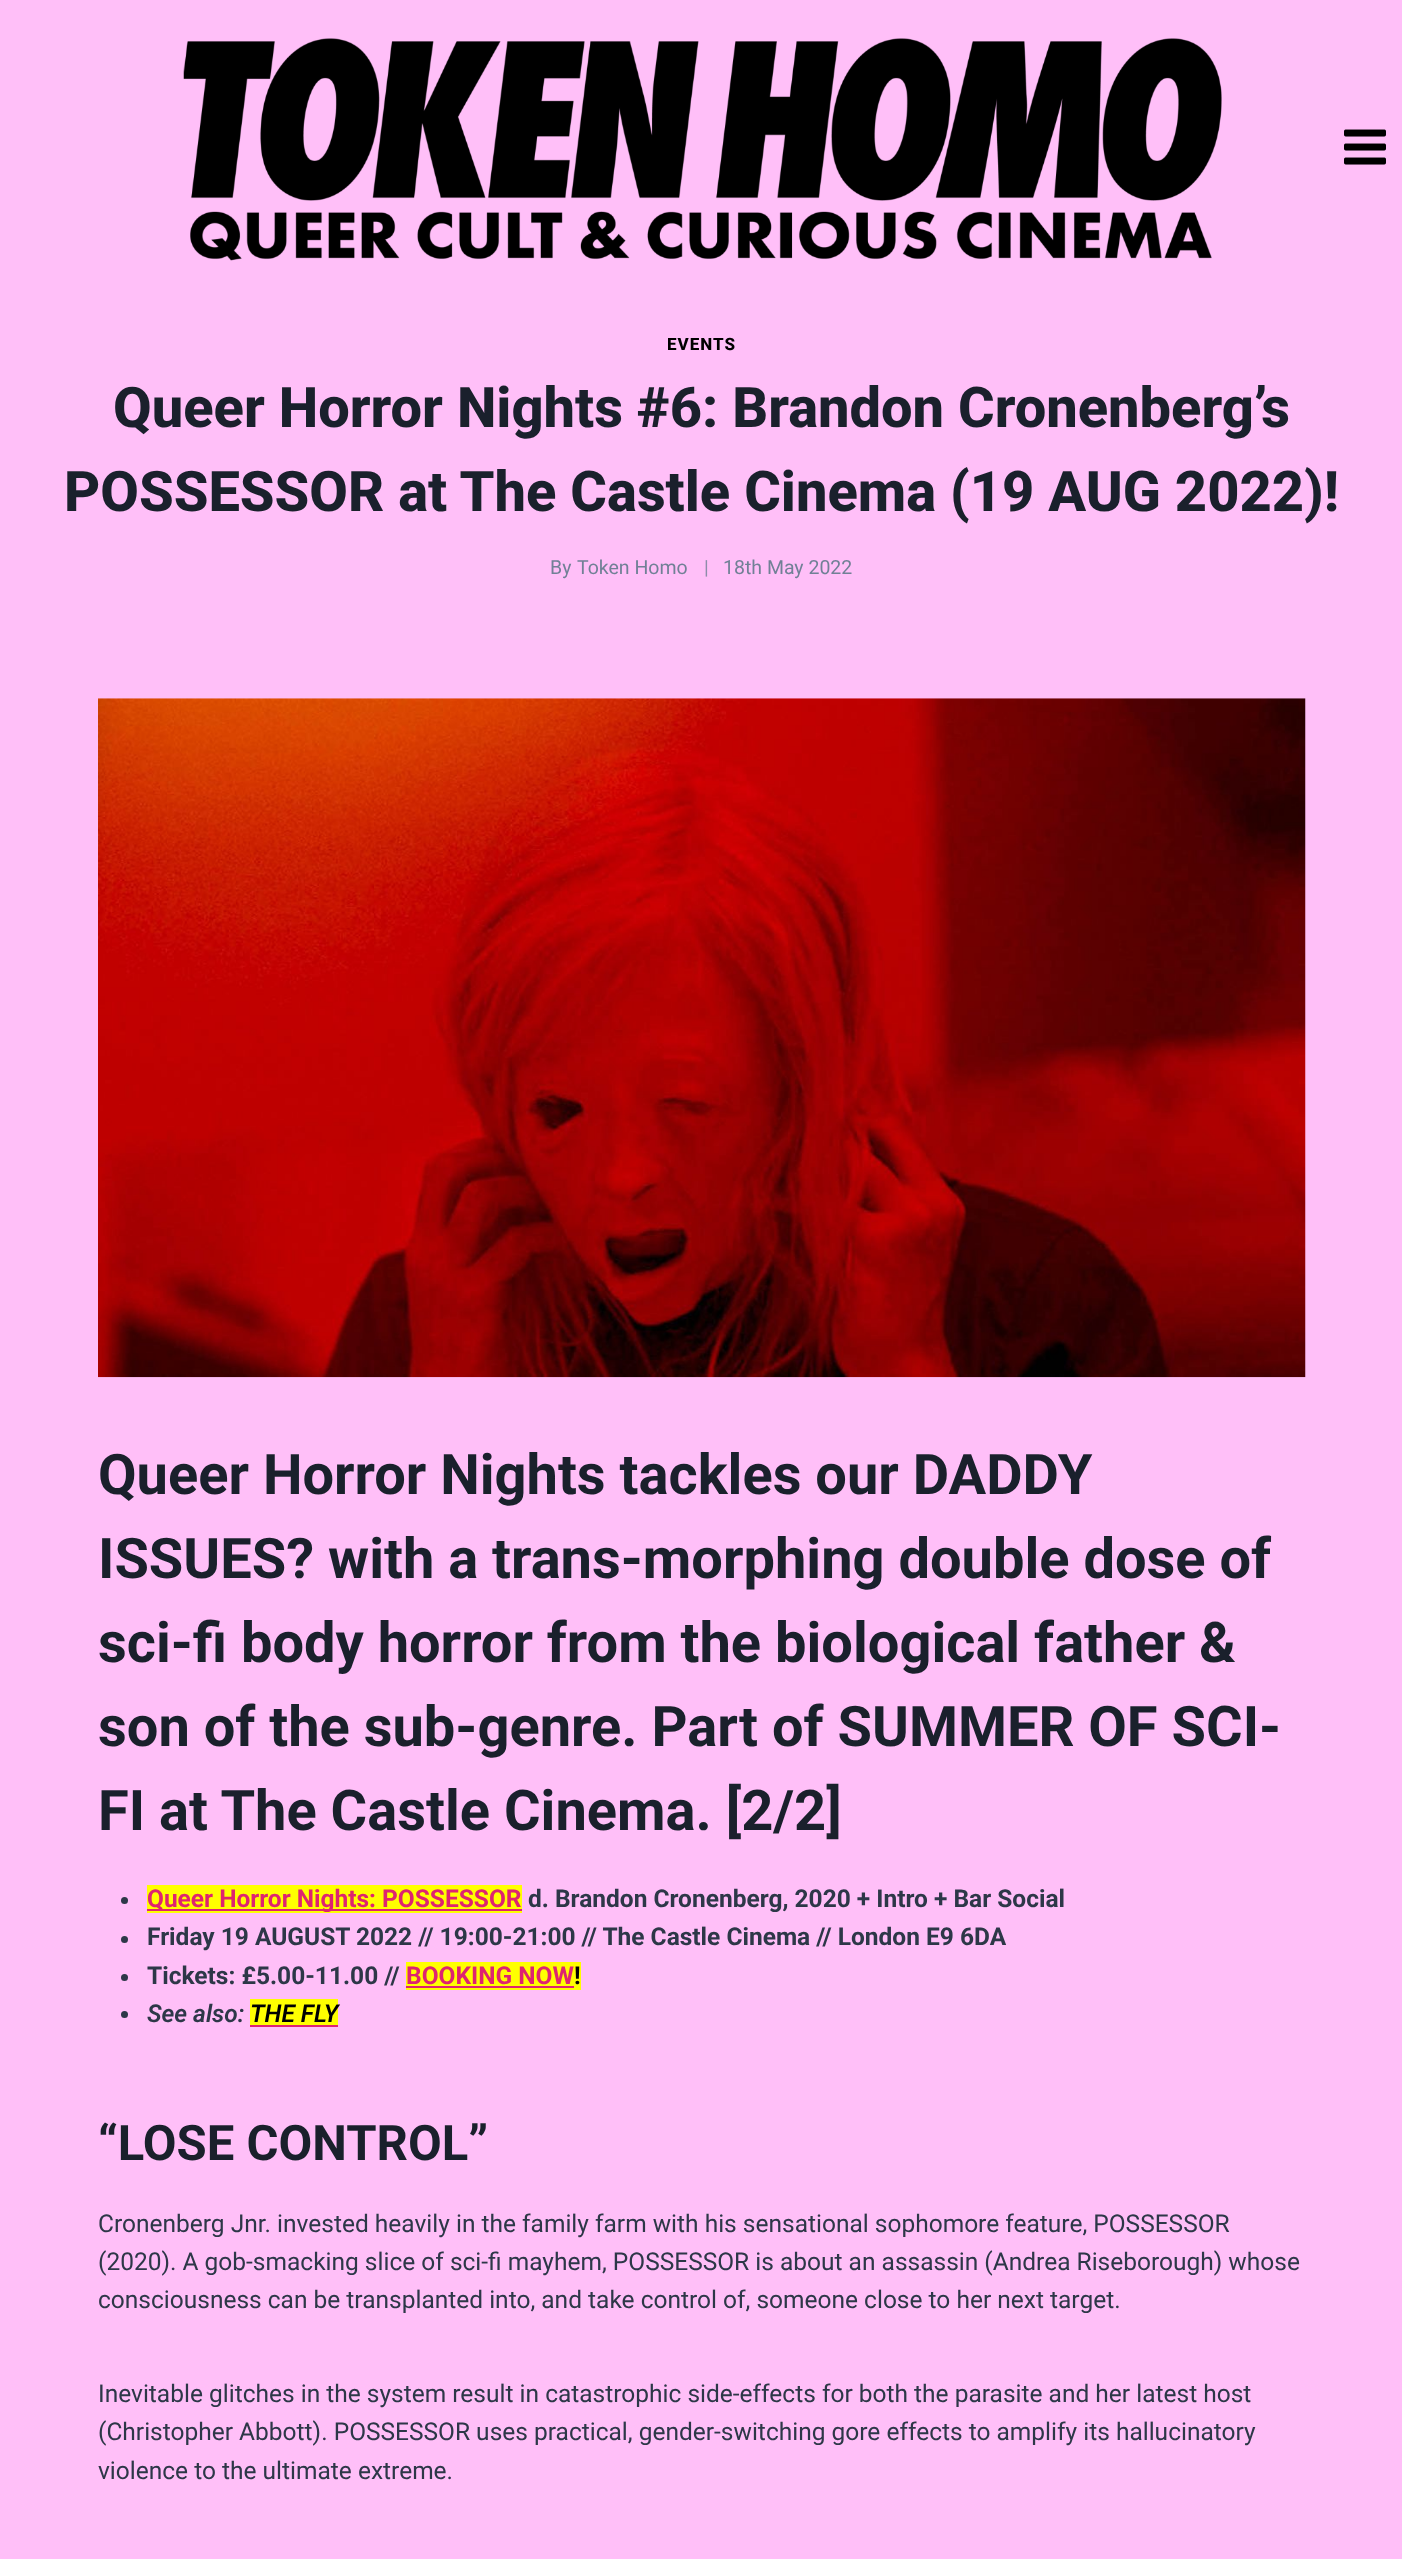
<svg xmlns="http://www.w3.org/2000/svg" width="1402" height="2559">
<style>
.a{font:800 17px Roboto;letter-spacing:1px;fill:#000}
.b{font:800 56px Roboto;fill:#1a202c}
.c{font:19.5px Roboto;fill:#718096}
.d{font:19.5px Roboto;fill:#8d8daa}
.e{font:bold 56px Roboto;fill:#1a202c}
.f{font:bold 24.5px Roboto;fill:#de2470}
.g{font:bold 24.5px Roboto;fill:#2d3748}
.h{font:bold 24.5px Roboto;fill:#000}
.i{font:italic 600 24.5px Roboto;fill:#2d3748}
.j{font:italic 600 24.5px Roboto;fill:#000}
.k{font:bold 49px Roboto;fill:#1a202c}
.l{font:24.5px Roboto;fill:#2d3748}
</style>
<rect width="100%" height="100%" fill="#ffbff8"/>
<image href="1.png" x="183" y="38" width="1039" height="223"/>
<image href="2.png" x="1344" y="129" width="42" height="36"/>
<image href="3.png" x="98" y="698" width="1208" height="680"/>
<circle fill="#2d3748" cx="124.5" cy="1900.5" r="3.5"/>
<path fill="#ff0" d="M147 1885h375v28H147z"/>
<path fill="#de2470" d="M147 1909h375v2H147z"/>
<circle fill="#2d3748" cx="124.5" cy="1939.5" r="3.5"/>
<circle fill="#2d3748" cx="124.5" cy="1977.5" r="3.5"/>
<path fill="#ff0" d="M406 1962h175v28H406z"/>
<path fill="#de2470" d="M406 1986h168v2H406z"/>
<circle fill="#2d3748" cx="124.5" cy="2014.5" r="3.5"/>
<path fill="#ff0" d="M250 1999h88v26H250z"/>
<path fill="#de2470" d="M250 2025h88v2H250z"/>
<text class="a" x="667" y="350">EVENTS</text>
<text class="b" x="113" y="427">Queer Horror Nights #6: Brandon Cronenberg’s</text>
<text class="b" x="64" y="511">POSSESSOR at The Castle Cinema (19 AUG 2022)!</text>
<text class="c" x="550" y="574">By</text>
<text class="c" x="577" y="574">Token Homo</text>
<text class="d" x="704" y="574">|</text>
<text class="c" x="723" y="574">18th May 2022</text>
<text class="e" x="98" y="1494">Queer Horror Nights tackles our DADDY</text>
<text class="e" x="98" y="1578">ISSUES? with a trans-morphing double dose of</text>
<text class="e" x="98" y="1662">sci-fi body horror from the biological father &amp;</text>
<text class="e" x="98" y="1746">son of the sub-genre. Part of SUMMER OF SCI-</text>
<text class="e" x="98" y="1830">FI at The Castle Cinema. [2/2]</text>
<text class="f" x="147" y="1907">Queer Horror Nights: POSSESSOR</text>
<text class="g" x="528" y="1907">d. Brandon Cronenberg, 2020 + Intro + Bar Social</text>
<text class="g" x="147" y="1945">Friday 19 AUGUST 2022 // 19:00-21:00 // The Castle Cinema // London E9 6DA</text>
<text class="g" x="147" y="1984">Tickets: £5.00-11.00 //</text>
<text class="f" x="406" y="1984">BOOKING NOW</text>
<text class="h" x="574" y="1984">!</text>
<text class="i" x="147" y="2022">See also:</text>
<text class="j" x="250" y="2022">THE FLY</text>
<text class="k" x="98" y="2160">“LOSE CONTROL”</text>
<text class="l" x="98" y="2232">Cronenberg Jnr. invested heavily in the family farm with his sensational sophomore feature, POSSESSOR</text>
<text class="l" x="98" y="2270">(2020). A gob-smacking slice of sci-fi mayhem, POSSESSOR is about an assassin (Andrea Riseborough) whose</text>
<text class="l" x="98" y="2308">consciousness can be transplanted into, and take control of, someone close to her next target.</text>
<text class="l" x="98" y="2402">Inevitable glitches in the system result in catastrophic side-effects for both the parasite and her latest host</text>
<text class="l" x="98" y="2440">(Christopher Abbott). POSSESSOR uses practical, gender-switching gore effects to amplify its hallucinatory</text>
<text class="l" x="98" y="2479">violence to the ultimate extreme.</text>
</svg>
